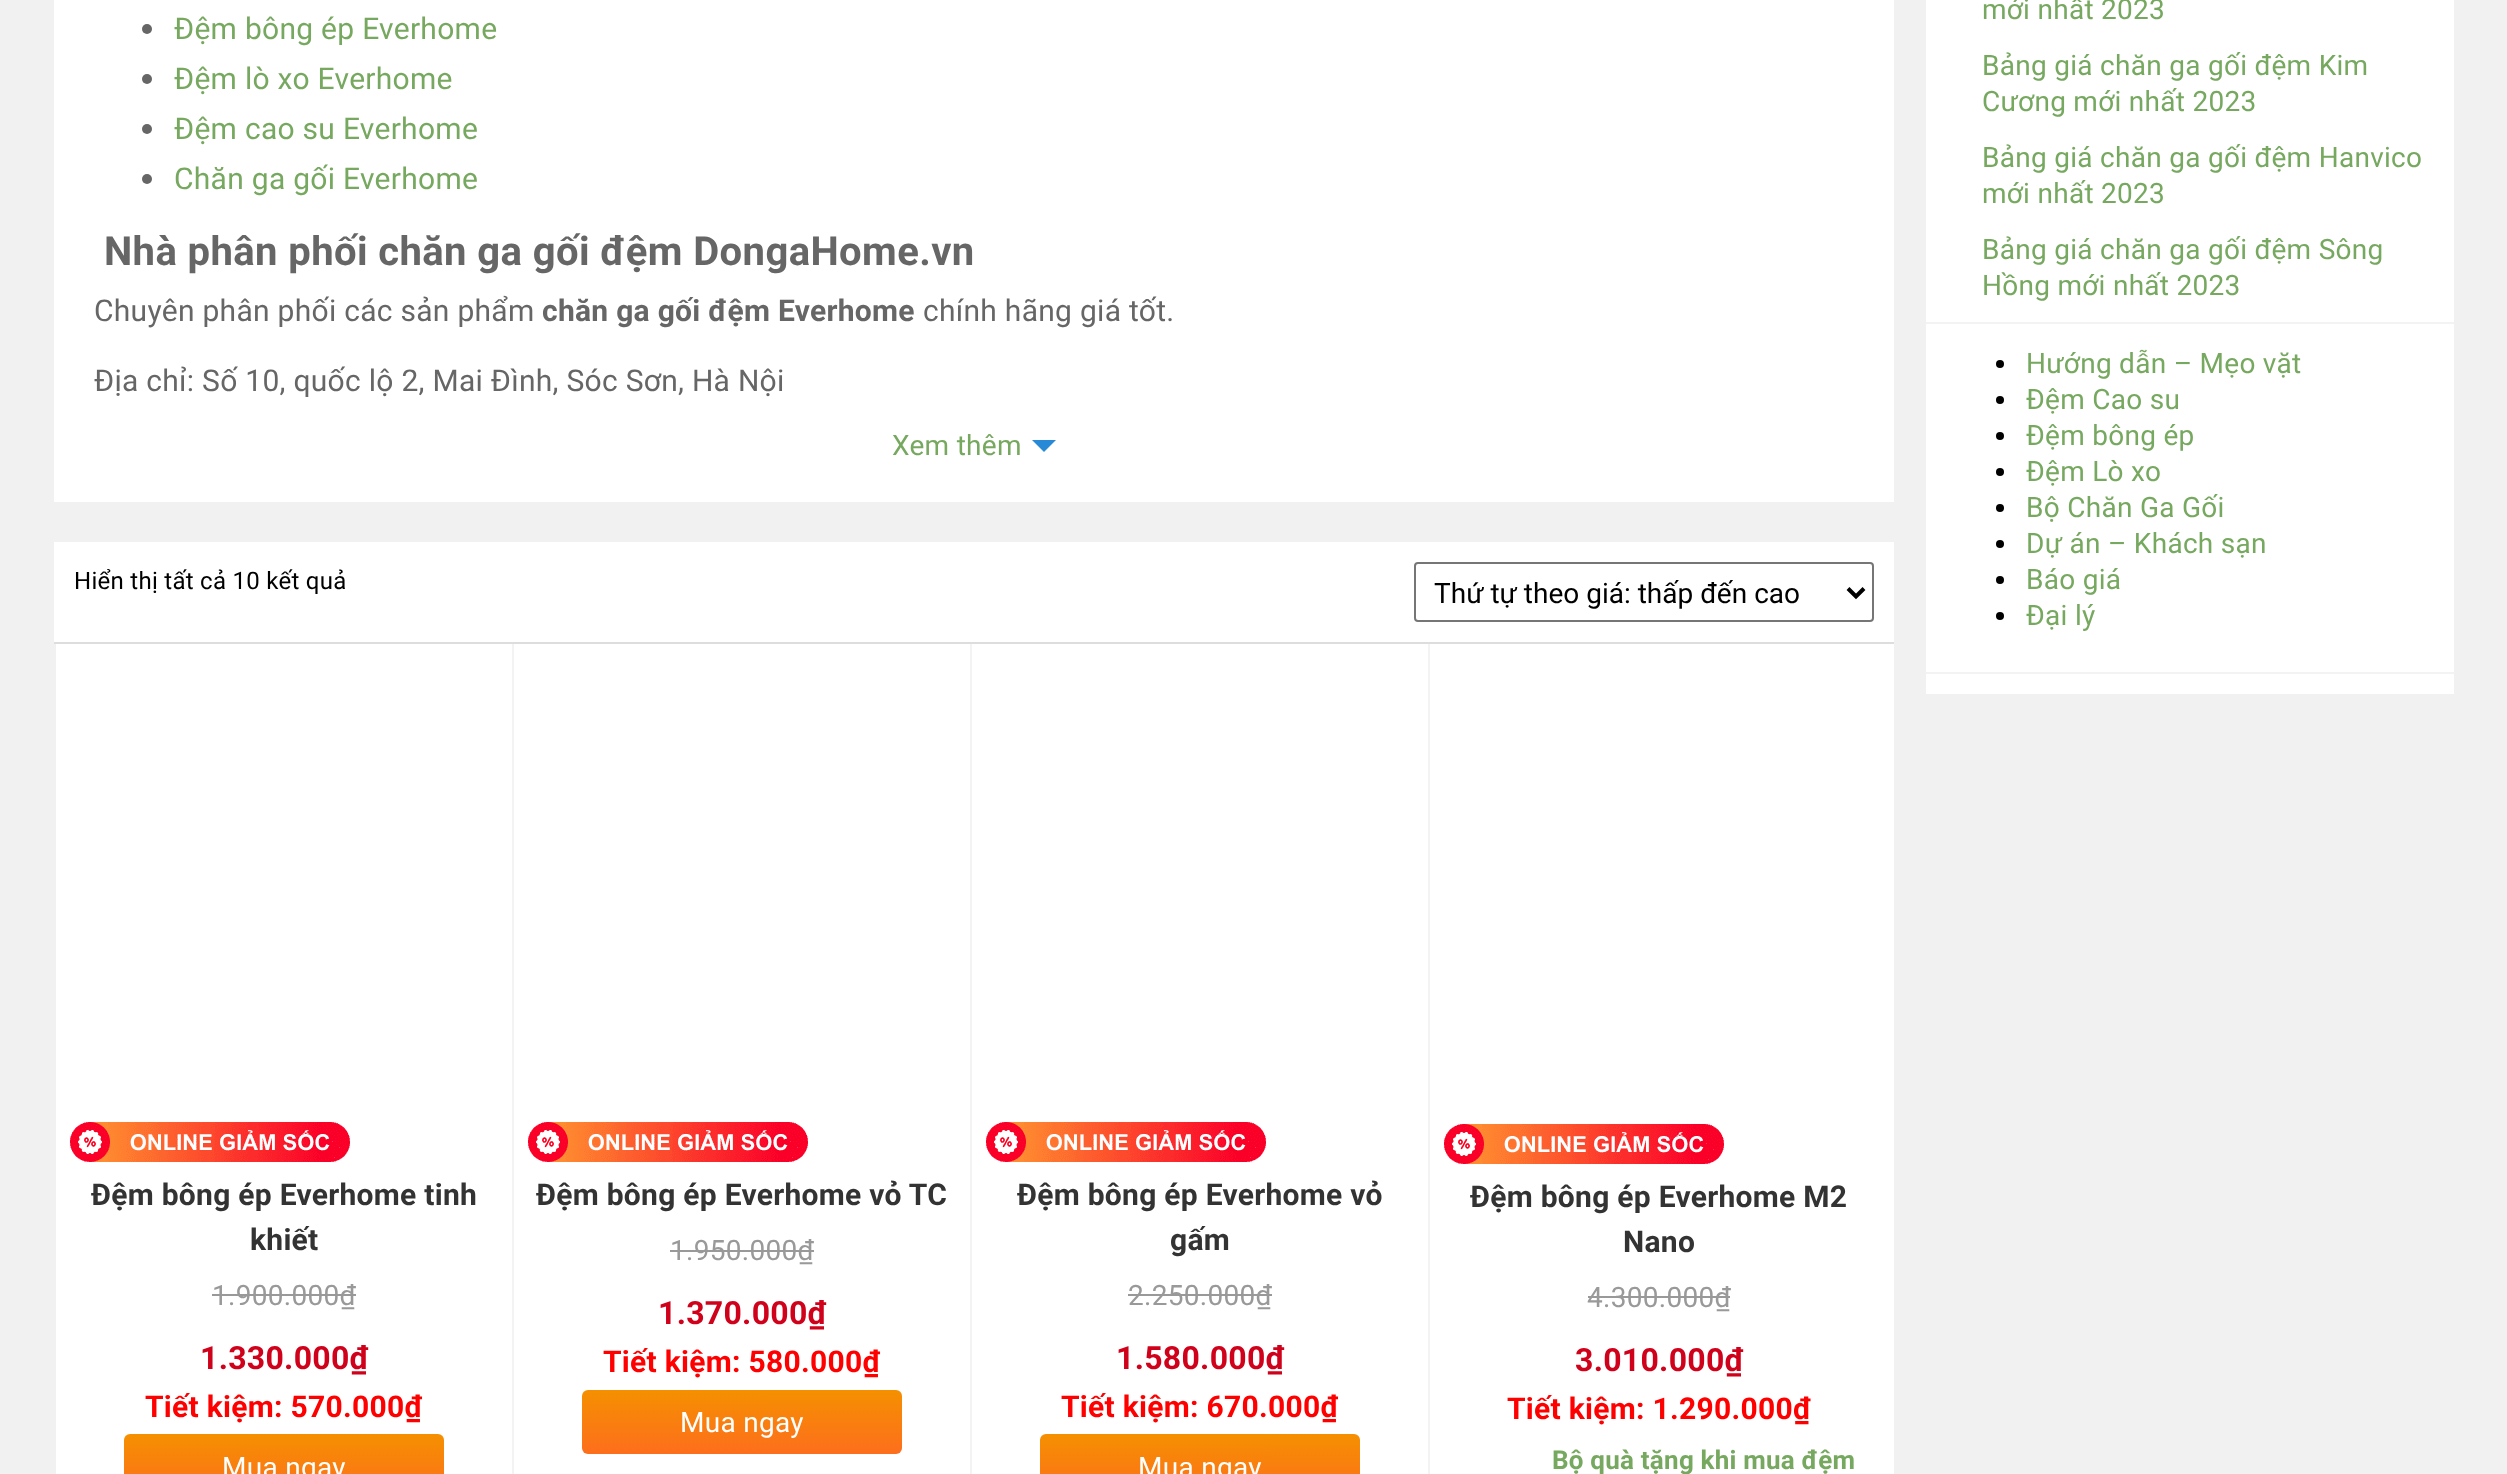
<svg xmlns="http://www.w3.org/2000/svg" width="2507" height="1474">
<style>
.a{font:30px Roboto;letter-spacing:0.28px;fill:#76a85f}
.b{font:bold 40px Roboto;letter-spacing:0.4px;fill:#666}
.c{font:30px Roboto;letter-spacing:0.28px;fill:#666}
.d{font:bold 30px Roboto;letter-spacing:0.28px;fill:#666}
.e{font:28px Roboto;letter-spacing:0.28px;fill:#76a85f}
.f{font:24px Roboto;letter-spacing:0.28px;fill:#000}
.g{font:28px Roboto;fill:#000}
.h{font:bold 30px Roboto;letter-spacing:0.28px;fill:#333}
.i{font:28px Roboto;letter-spacing:0.28px;fill:#999}
.j{font:bold 32px Roboto;letter-spacing:0.28px;fill:#d0021b}
.k{font:bold 30px Roboto;letter-spacing:0.28px;fill:#f00}
.l{font:28px Roboto;letter-spacing:0.28px;fill:#fff}
.m{font:bold 26px Roboto;letter-spacing:0.28px;fill:#76a85f}
</style>
<defs>
<linearGradient id="g1" gradientUnits="userSpaceOnUse" x1="284" y1="1434" x2="284" y2="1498"><stop offset="0" stop-color="#f59000"/><stop offset="1" stop-color="#fd6e1d"/></linearGradient>
<linearGradient id="g2" gradientUnits="userSpaceOnUse" x1="742" y1="1390" x2="742" y2="1454"><stop offset="0" stop-color="#f59000"/><stop offset="1" stop-color="#fd6e1d"/></linearGradient>
<linearGradient id="g3" gradientUnits="userSpaceOnUse" x1="1200" y1="1434" x2="1200" y2="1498"><stop offset="0" stop-color="#f59000"/><stop offset="1" stop-color="#fd6e1d"/></linearGradient>
</defs>
<rect width="100%" height="100%" fill="#f1f1f1"/>
<path fill="#fff" d="M54 0h1840v502H54z"/>
<circle fill="#666" cx="147" cy="29" r="5"/>
<circle fill="#666" cx="147" cy="79" r="5"/>
<circle fill="#666" cx="147" cy="129" r="5"/>
<circle fill="#666" cx="147" cy="179" r="5"/>
<path fill="#288ad6" d="M1032 440h24l-12 12z"/>
<path fill="#fff" d="M54 542h1840v100H54z"/>
<path fill="#ddd" d="M54 642h1840v2H54z"/>
<rect fill="none" stroke="#767676" stroke-width="2" x="1415" y="563" width="458" height="58" rx="3"/>
<path fill="none" stroke="#000" stroke-width="4" d="M1848 588.5l8 8l8-8"/>
<path fill="#fff" d="M56 644h1838v830H56z"/>
<path fill="#f3f3f3" d="M512 644h2v830H512z"/>
<image href="1.png" x="70" y="1122" width="280" height="40"/>
<path fill="#999" d="M212 1294h144v2H212z"/>
<rect fill="url(#g1)" x="124" y="1434" width="320" height="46" rx="6"/>
<path fill="#f3f3f3" d="M970 644h2v830H970z"/>
<image href="1.png" x="528" y="1122" width="280" height="40"/>
<path fill="#999" d="M670 1250h144v2H670z"/>
<rect fill="url(#g2)" x="582" y="1390" width="320" height="64" rx="6"/>
<path fill="#f3f3f3" d="M1428 644h2v830H1428z"/>
<image href="1.png" x="986" y="1122" width="280" height="40"/>
<path fill="#999" d="M1128 1294h144v2H1128z"/>
<rect fill="url(#g3)" x="1040" y="1434" width="320" height="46" rx="6"/>
<image href="1.png" x="1444" y="1124" width="280" height="40"/>
<path fill="#999" d="M1588 1296h142v2H1588z"/>
<path fill="#fff" d="M1926 0h528v694H1926z"/>
<path fill="#f3f3f3" d="M1926 322h528v2H1926z"/>
<path fill="#f3f3f3" d="M1926 672h528v2H1926z"/>
<circle fill="#000" cx="2000" cy="364" r="4"/>
<circle fill="#000" cx="2000" cy="400" r="4"/>
<circle fill="#000" cx="2000" cy="436" r="4"/>
<circle fill="#000" cx="2000" cy="472" r="4"/>
<circle fill="#000" cx="2000" cy="508" r="4"/>
<circle fill="#000" cx="2000" cy="544" r="4"/>
<circle fill="#000" cx="2000" cy="580" r="4"/>
<circle fill="#000" cx="2000" cy="616" r="4"/>
<text class="a" x="174" y="39">Đệm bông ép Everhome</text>
<text class="a" x="174" y="89">Đệm lò xo Everhome</text>
<text class="a" x="174" y="139">Đệm cao su Everhome</text>
<text class="a" x="174" y="189">Chăn ga gối Everhome</text>
<text class="b" x="104" y="265">Nhà phân phối chăn ga gối đệm DongaHome.vn</text>
<text class="c" x="94" y="321">Chuyên phân phối các sản phẩm</text>
<text class="d" x="542" y="321">chăn ga gối đệm Everhome</text>
<text class="c" x="923" y="321">chính hãng giá tốt.</text>
<text class="c" x="94" y="391">Địa chỉ: Số 10, quốc lộ 2, Mai Đình, Sóc Sơn, Hà Nội</text>
<text class="e" x="892" y="455">Xem thêm</text>
<text class="f" x="74" y="589">Hiển thị tất cả 10 kết quả</text>
<text class="g" x="1434" y="603">Thứ tự theo giá: thấp đến cao</text>
<text class="h" x="91" y="1205">Đệm bông ép Everhome tinh</text>
<text class="h" x="250" y="1250">khiết</text>
<text class="i" x="212" y="1305">1.900.000₫</text>
<text class="j" x="200" y="1369">1.330.000₫</text>
<text class="k" x="145" y="1417">Tiết kiệm: 570.000₫</text>
<text class="l" x="222" y="1477">Mua ngay</text>
<text class="h" x="536" y="1205">Đệm bông ép Everhome vỏ TC</text>
<text class="i" x="670" y="1260">1.950.000₫</text>
<text class="j" x="658" y="1324">1.370.000₫</text>
<text class="k" x="603" y="1372">Tiết kiệm: 580.000₫</text>
<text class="l" x="680" y="1432">Mua ngay</text>
<text class="h" x="1017" y="1205">Đệm bông ép Everhome vỏ</text>
<text class="h" x="1170" y="1250">gấm</text>
<text class="i" x="1128" y="1305">2.250.000₫</text>
<text class="j" x="1116" y="1369">1.580.000₫</text>
<text class="k" x="1061" y="1417">Tiết kiệm: 670.000₫</text>
<text class="l" x="1138" y="1477">Mua ngay</text>
<text class="h" x="1470" y="1207">Đệm bông ép Everhome M2</text>
<text class="h" x="1623" y="1252">Nano</text>
<text class="i" x="1587" y="1307">4.300.000₫</text>
<text class="j" x="1575" y="1371">3.010.000₫</text>
<text class="k" x="1507" y="1419">Tiết kiệm: 1.290.000₫</text>
<text class="m" x="1552" y="1469" word-spacing="-0.25">Bộ quà tặng khi mua đệm</text>
<text class="e" x="1982" y="19">mới nhất 2023</text>
<text class="e" x="1982" y="75">Bảng giá chăn ga gối đệm Kim</text>
<text class="e" x="1982" y="111">Cương mới nhất 2023</text>
<text class="e" x="1982" y="167">Bảng giá chăn ga gối đệm Hanvico</text>
<text class="e" x="1982" y="203">mới nhất 2023</text>
<text class="e" x="1982" y="259">Bảng giá chăn ga gối đệm Sông</text>
<text class="e" x="1982" y="295">Hồng mới nhất 2023</text>
<text class="e" x="2026" y="373">Hướng dẫn – Mẹo vặt</text>
<text class="e" x="2026" y="409">Đệm Cao su</text>
<text class="e" x="2026" y="445">Đệm bông ép</text>
<text class="e" x="2026" y="481">Đệm Lò xo</text>
<text class="e" x="2026" y="517">Bộ Chăn Ga Gối</text>
<text class="e" x="2026" y="553">Dự án – Khách sạn</text>
<text class="e" x="2026" y="589">Báo giá</text>
<text class="e" x="2026" y="625">Đại lý</text>
</svg>
